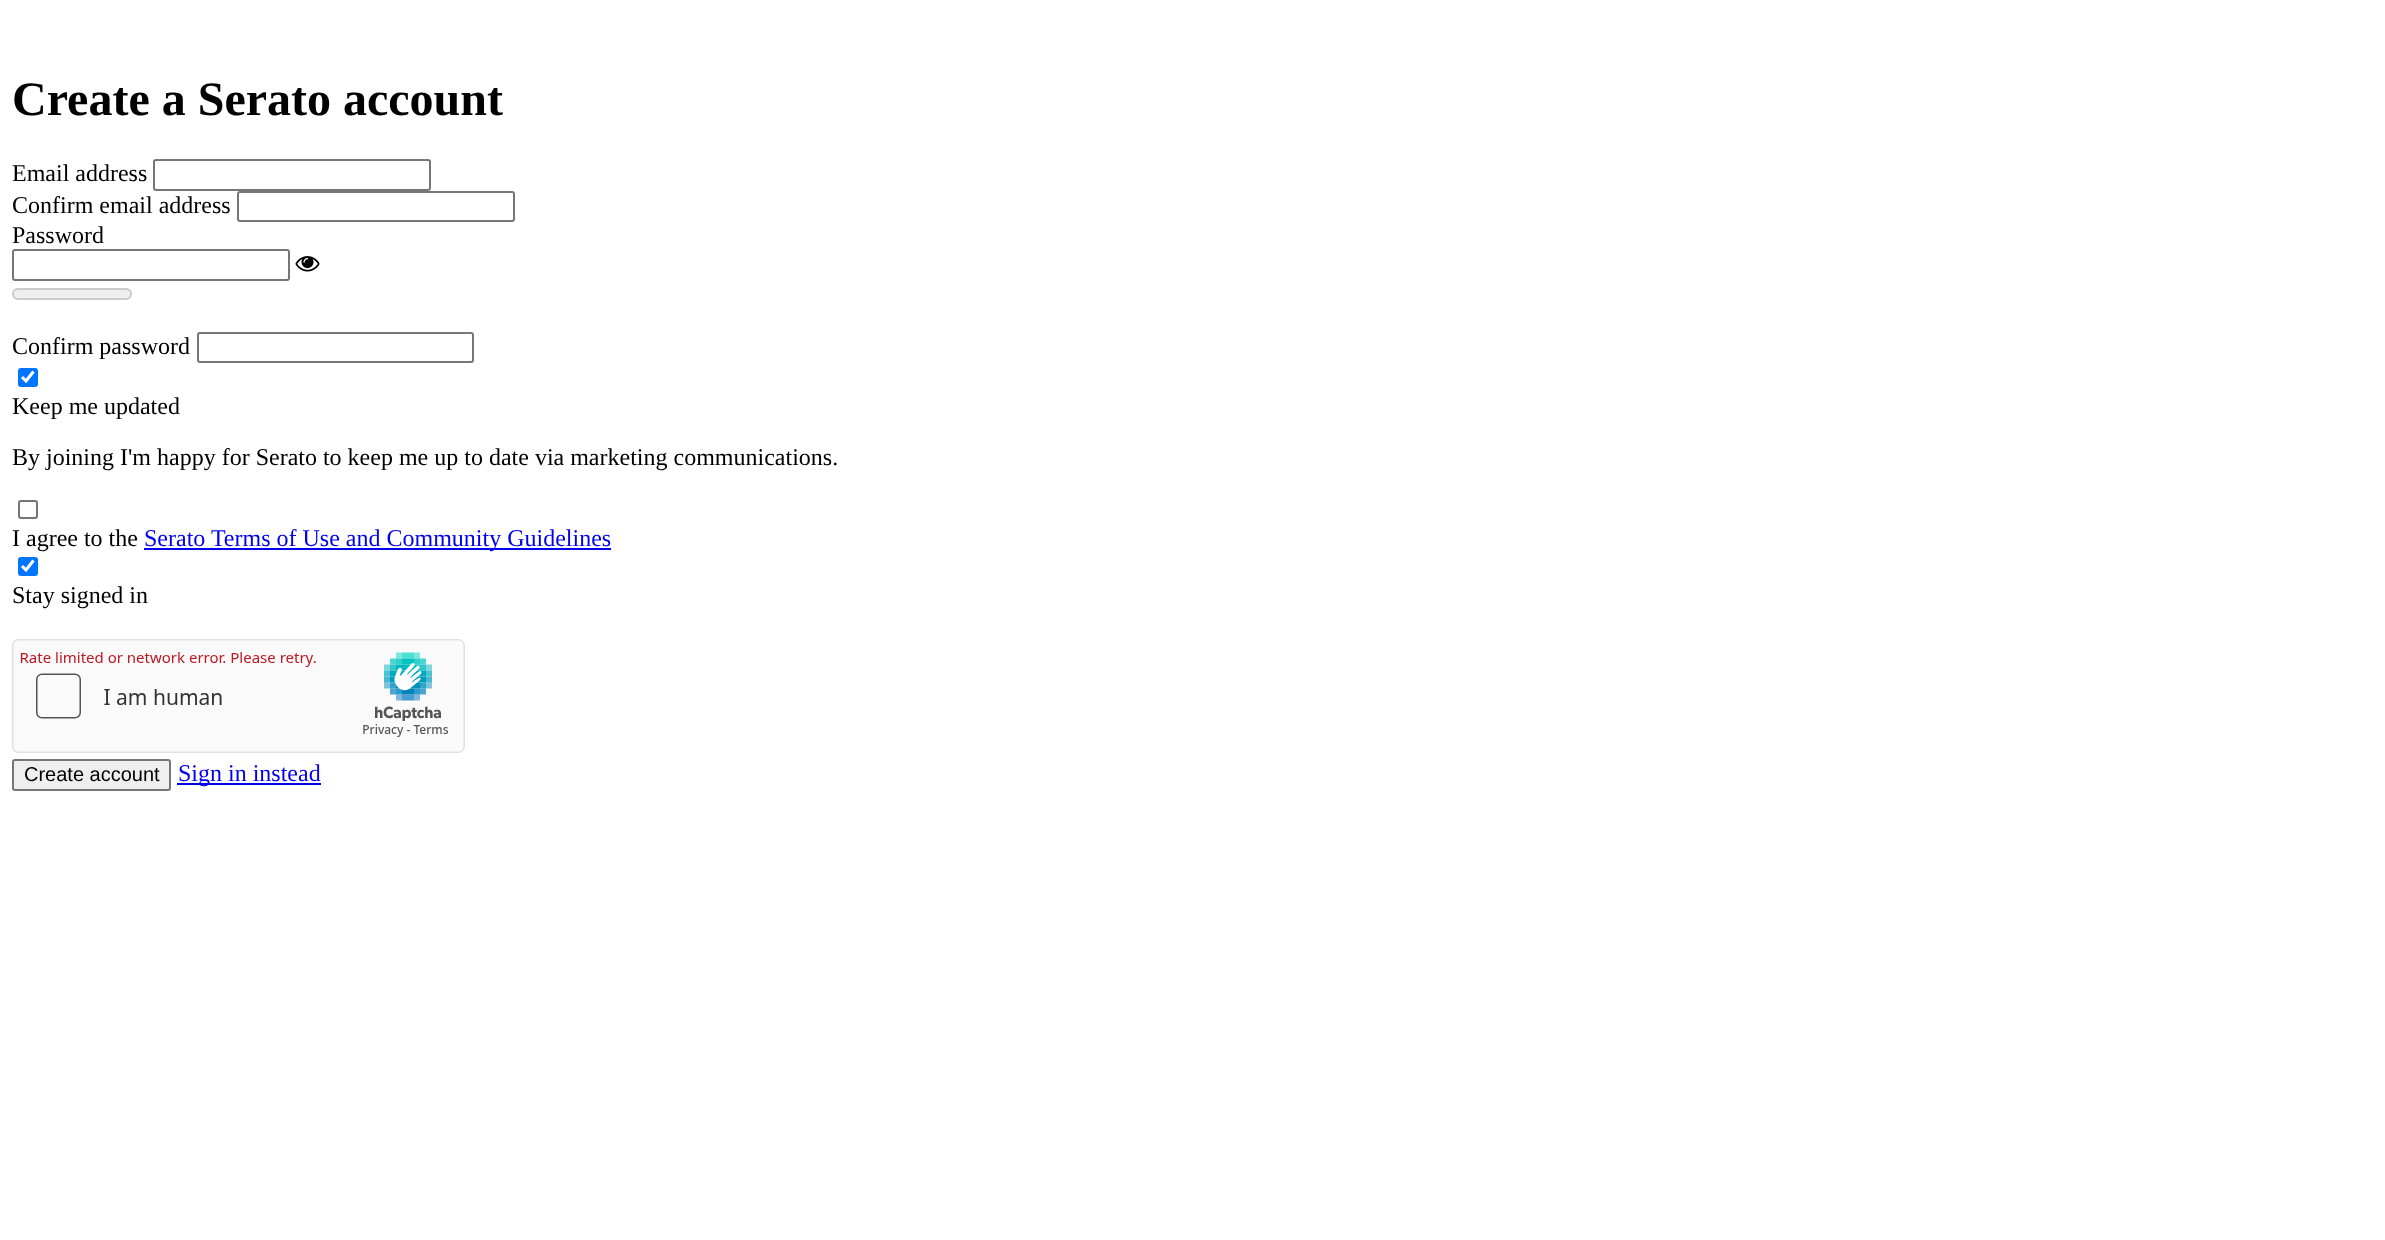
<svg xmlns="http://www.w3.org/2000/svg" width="2385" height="1240">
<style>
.a{font:bold 48px Liberation Serif;fill:#000}
.b{font:24px Liberation Serif;fill:#000}
.c{font:24px Liberation Serif;fill:#00e}
.d{font:20px Liberation Sans;fill:#000}
</style>
<rect width="100%" height="100%" fill="#fff"/>
<rect fill="none" stroke="#767676" stroke-width="2" x="154" y="160" width="276" height="30" rx="2"/>
<rect fill="none" stroke="#767676" stroke-width="2" x="238" y="192" width="276" height="29" rx="2"/>
<rect fill="none" stroke="#767676" stroke-width="2" x="13" y="250" width="276" height="30" rx="2"/>
<image href="1.png" x="295" y="256" width="25" height="16"/>
<rect fill="#efefef" x="12" y="288" width="120" height="12" rx="6"/>
<rect fill="none" stroke="#7676764d" stroke-width="2" x="13" y="289" width="118" height="10" rx="5"/>
<rect fill="none" stroke="#767676" stroke-width="2" x="198" y="333" width="275" height="29" rx="2"/>
<rect fill="#0075ff" x="18" y="368" width="20" height="19" rx="3"/>
<path fill="none" stroke="#fff" stroke-width="3.1" d="M22 377l4 4l7.5-9.5"/>
<rect fill="none" stroke="#767676" stroke-width="2" x="19" y="501" width="18" height="17" rx="2"/>
<path fill="#00e" d="M144 548h467v2H144z"/>
<rect fill="#0075ff" x="18" y="557" width="20" height="19" rx="3"/>
<path fill="none" stroke="#fff" stroke-width="3.1" d="M22 566l4 4l7.5-9.5"/>
<image href="2.png" x="12" y="639" width="453" height="114"/>
<rect fill="#efefef" stroke="#767676" stroke-width="2" x="13" y="760" width="157" height="30" rx="2"/>
<path fill="#00e" d="M177 783h144v2H177z"/>
<text class="a" x="12" y="115">Create a Serato account</text>
<text class="b" x="12" y="181">Email address</text>
<text class="b" x="12" y="213">Confirm email address</text>
<text class="b" x="12" y="243">Password</text>
<text class="b" x="12" y="354">Confirm password</text>
<text class="b" x="12" y="414">Keep me updated</text>
<text class="b" x="12" y="465">By joining I'm happy for Serato to keep me up to date via marketing communications.</text>
<text class="b" x="12" y="546">I agree to the</text>
<text class="c" x="144" y="546">Serato Terms of Use and Community Guidelines</text>
<text class="b" x="12" y="603">Stay signed in</text>
<text class="d" x="24" y="781">Create account</text>
<text class="c" x="178" y="781">Sign in instead</text>
</svg>
